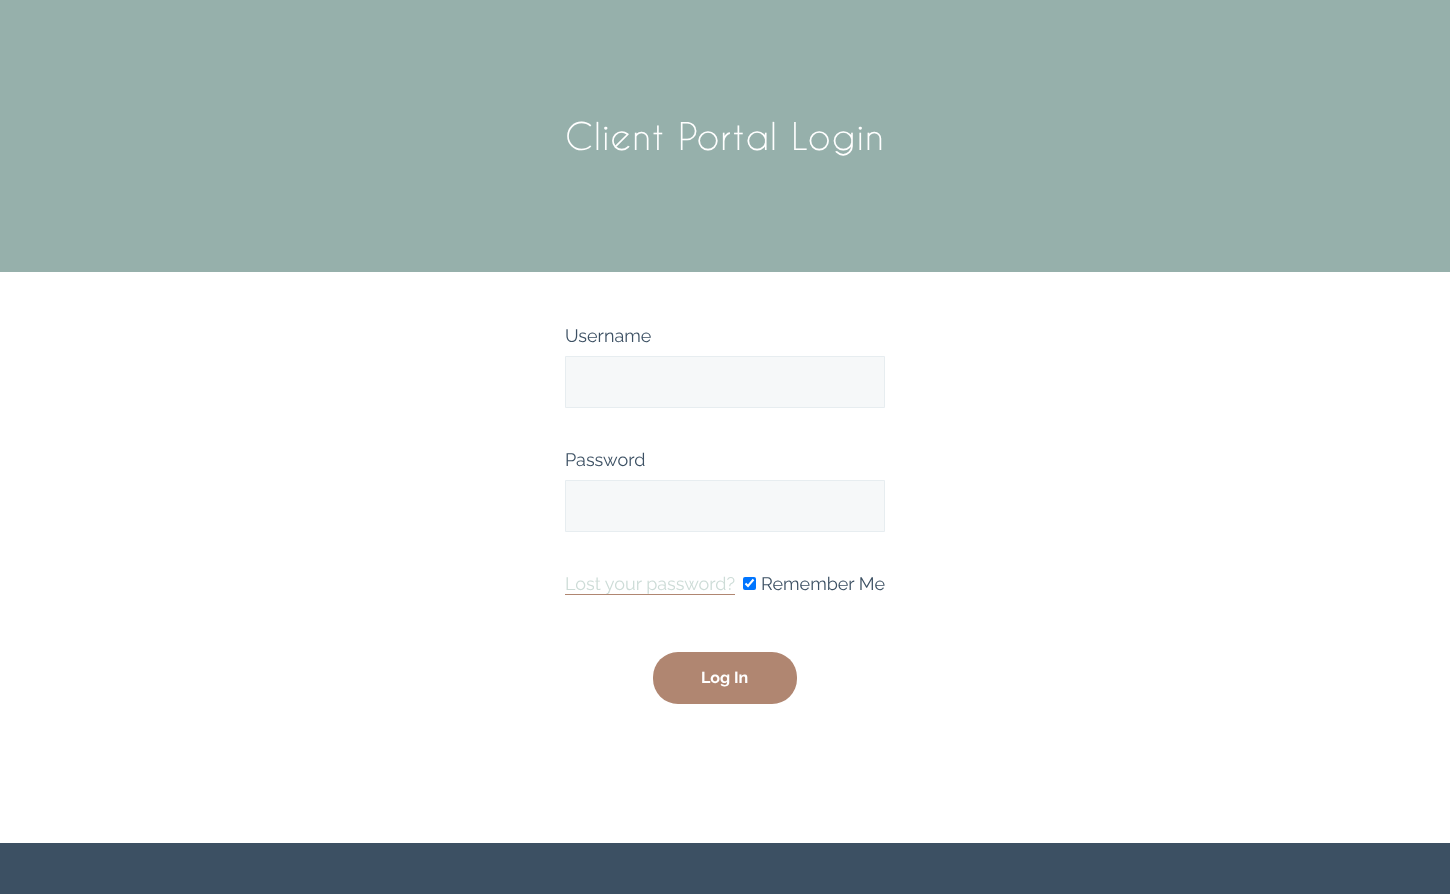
<svg xmlns="http://www.w3.org/2000/svg" width="1450" height="894">
<style>
.a{font:36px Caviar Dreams;letter-spacing:1px;fill:#fff}
.b{font:18px Raleway;fill:#3c5063}
.c{font:18px Raleway;fill:#cddcd7}
.d{font:bold 16px Raleway;fill:#fff}
</style>
<rect width="100%" height="100%" fill="#fff"/>
<path fill="#96b0ab" d="M0 0h1450v272H0z"/>
<path fill="#f6f8f9" stroke="#e7edf0" d="M565.5 356.5h319v51H565.5z"/>
<path fill="#f6f8f9" stroke="#e7edf0" d="M565.5 480.5h319v51H565.5z"/>
<path fill="#b08671" d="M565 594h170v1H565z"/>
<rect fill="#0075ff" x="743" y="577" width="13" height="13" rx="2"/>
<path fill="none" stroke="#fff" stroke-width="2.1" d="M745.5 583.5l2.5 2.5l5.5-6.5"/>
<rect fill="#b08671" x="653" y="652" width="144" height="52" rx="25"/>
<path fill="#3c5063" d="M0 843h1450v51H0z"/>
<text class="a" x="565" y="150">Client Portal Login</text>
<text class="b" x="565" y="342">Username</text>
<text class="b" x="565" y="466">Password</text>
<text class="c" x="565" y="590">Lost your password?</text>
<text class="b" x="761" y="590">Remember Me</text>
<text class="d" x="701" y="683">Log In</text>
</svg>
